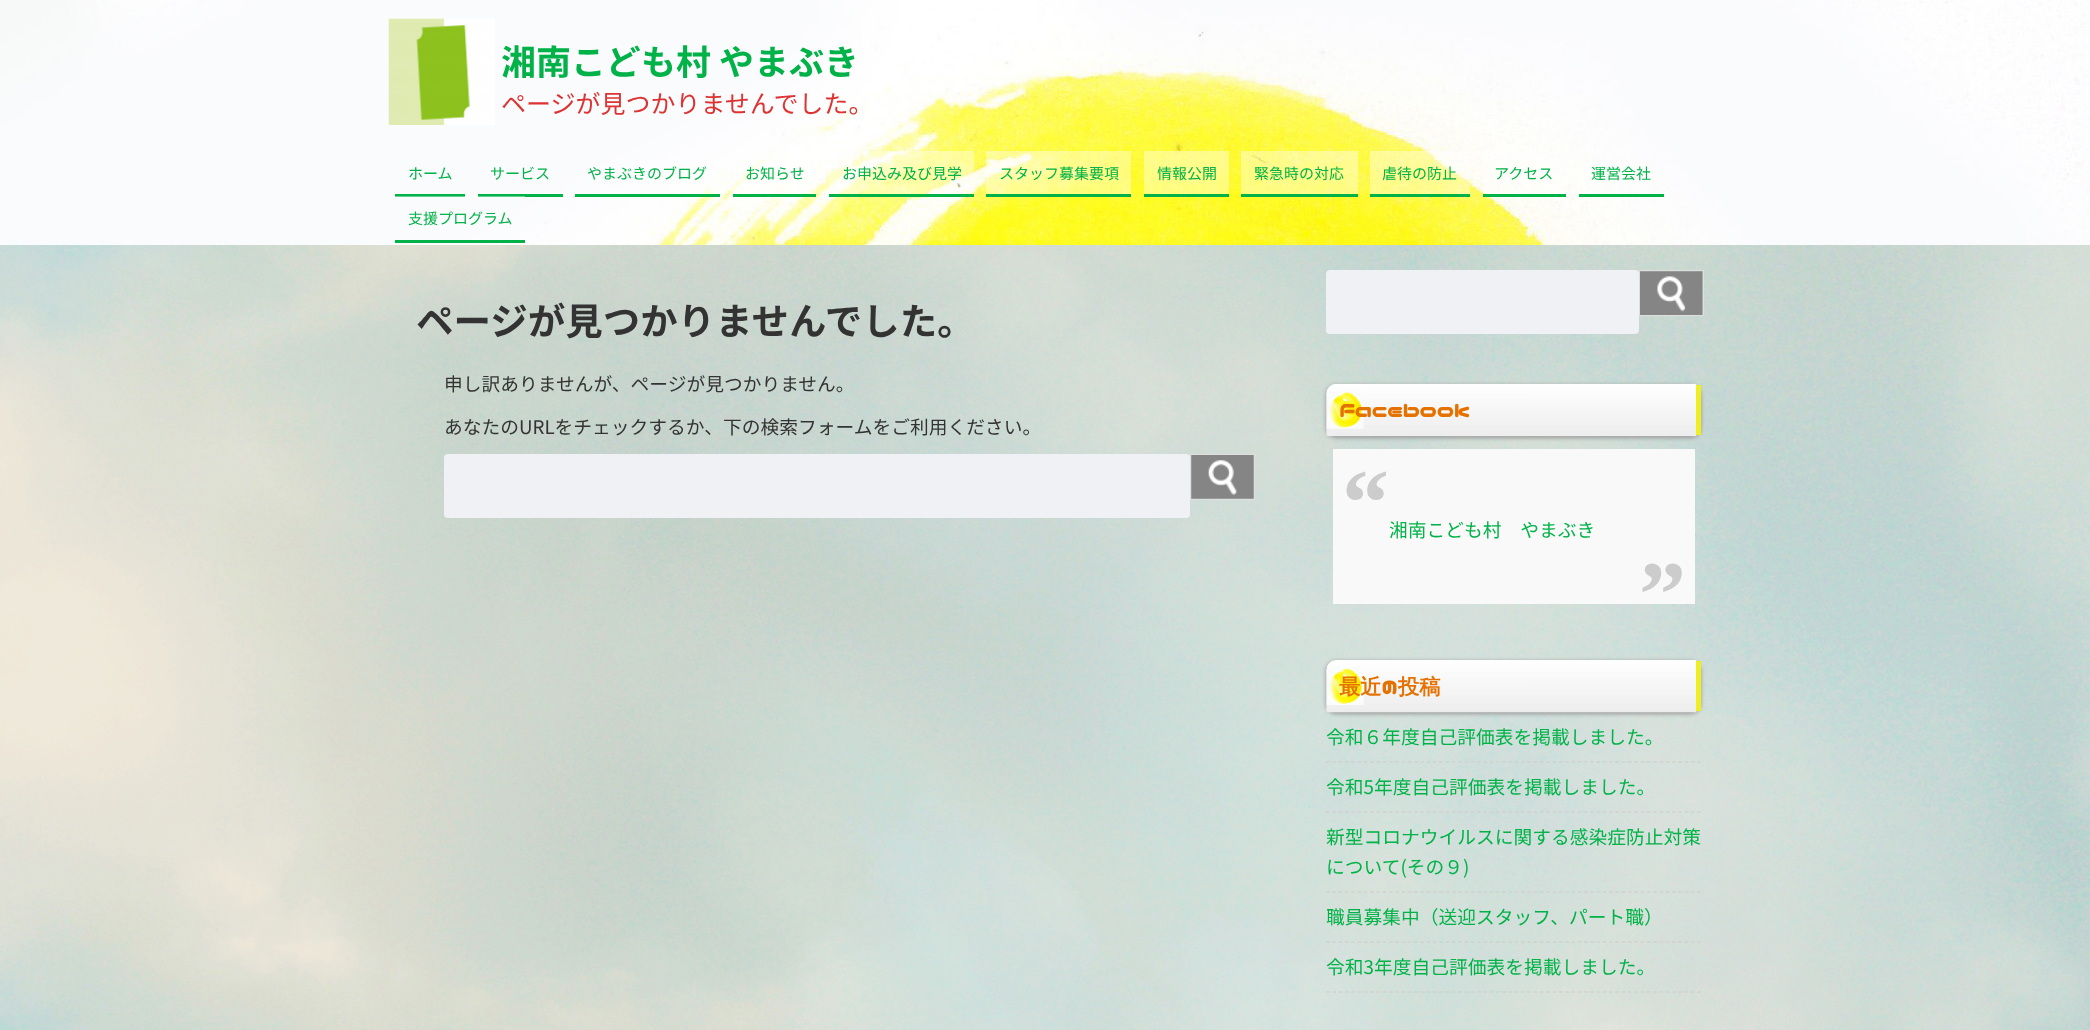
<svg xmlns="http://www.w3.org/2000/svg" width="2090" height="1030">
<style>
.a{font:bold 35px Noto Sans JP;fill:#00b247}
.b{font:25px Noto Sans JP;fill:#d33}
.c{font:15px Noto Sans JP;fill:#00b247}
.d{font:bold 37.5px Noto Sans JP;fill:#333}
.e{font:18.75px Noto Sans JP;fill:#333}
.f{font:bold 21.25px Nico Moji;fill:#e57200}
.g{font:bold 94px Liberation Serif;fill:#ccc}
.h{font:18.75px Noto Sans JP;fill:#00b247}
.i{font:bold 21.25px WenQuanYi Zen Hei;fill:#e57200}
</style>
<rect width="100%" height="100%" fill="#fff"/>
<image href="1.png" x="0" y="245" width="2090" height="785"/>
<image href="2.png" x="0" y="0" width="2090" height="245"/>
<image href="3.png" x="388" y="18" width="107" height="107"/>
<path fill="#00b247" d="M395 194h70v3H395z"/>
<path fill="#00b247" d="M478 194h85v3H478z"/>
<path fill="#ffffff66" d="M697 171h23v23H697z"/>
<path fill="#00b247" d="M575 194h145v3H575z"/>
<path fill="#ffffff66" d="M733 152h83v42H733z"/>
<path fill="#00b247" d="M733 194h83v3H733z"/>
<path fill="#ffffff66" d="M829 151h145v43H829z"/>
<path fill="#00b247" d="M829 194h145v3H829z"/>
<path fill="#ffffff66" d="M986 151h145v43H986z"/>
<path fill="#00b247" d="M986 194h145v3H986z"/>
<path fill="#ffffff66" d="M1144 151h85v43H1144z"/>
<path fill="#00b247" d="M1144 194h85v3H1144z"/>
<path fill="#ffffff66" d="M1241 151h117v43H1241z"/>
<path fill="#00b247" d="M1241 194h117v3H1241z"/>
<path fill="#ffffff66" d="M1370 151h100v43H1370z"/>
<path fill="#00b247" d="M1370 194h100v3H1370z"/>
<path fill="#ffffff66" d="M1483 151h83v43H1483z"/>
<path fill="#00b247" d="M1483 194h83v3H1483z"/>
<path fill="#ffffff66" d="M1579 162h18v32H1579z"/>
<path fill="#00b247" d="M1579 194h85v3H1579z"/>
<path fill="#ffffff66" d="M395 196h130v1H395z"/>
<path fill="#00b247" d="M395 240h130v3H395z"/>
<rect fill="#eff1f5" x="444" y="454" width="746" height="64" rx="4"/>
<path fill="none" stroke="#dfdfdf" d="M1190.5 454.5h64v45H1190.5z"/>
<image href="4.png" x="1191" y="455" width="63" height="44"/>
<rect fill="#eff1f5" x="1326" y="270" width="313" height="64" rx="4"/>
<path fill="none" stroke="#dfdfdf" d="M1639.5 270.5h64v45H1639.5z"/>
<image href="5.png" x="1640" y="271" width="63" height="44"/>
<rect fill="#999" filter="blur(2px)" x="1326" y="385" width="375" height="53" rx="10"/>
<image href="6.png" x="1326" y="383" width="371" height="54"/>
<path fill="#ee2" d="M1696 385h5v50H1696z"/>
<path fill="#f9f9f9" d="M1333 449h362v155H1333z"/>
<rect fill="#999" filter="blur(2px)" x="1326" y="661" width="375" height="53" rx="10"/>
<image href="7.png" x="1326" y="660" width="371" height="53"/>
<path fill="#ee2" d="M1696 661h5v50H1696z"/>
<path fill="none" stroke="#ccc" stroke-width="1.2" stroke-dasharray="3.75 2.54" d="M1326 762h375"/>
<path fill="none" stroke="#ccc" stroke-width="1.2" stroke-dasharray="3.75 2.54" d="M1326 812h375"/>
<path fill="none" stroke="#ccc" stroke-width="1.2" stroke-dasharray="3.75 2.54" d="M1326 892h375"/>
<path fill="none" stroke="#ccc" stroke-width="1.2" stroke-dasharray="3.75 2.54" d="M1326 942h375"/>
<path fill="none" stroke="#ccc" stroke-width="1.2" stroke-dasharray="3.75 2.54" d="M1326 992h375"/>
<text class="a" x="501" y="75">湘南こども村 やまぶき</text>
<text class="b" x="501" y="113">ページが見つかりませんでした。</text>
<text class="c" x="408" y="179">ホーム</text>
<text class="c" x="490" y="179">サービス</text>
<text class="c" x="587" y="179">やまぶきのブログ</text>
<text class="c" x="745" y="179">お知らせ</text>
<text class="c" x="842" y="179">お申込み及び見学</text>
<text class="c" x="999" y="179">スタッフ募集要項</text>
<text class="c" x="1157" y="179">情報公開</text>
<text class="c" x="1254" y="179">緊急時の対応</text>
<text class="c" x="1382" y="179">虐待の防止</text>
<text class="c" x="1494" y="179">アクセス</text>
<text class="c" x="1591" y="179">運営会社</text>
<text class="c" x="408" y="224">支援プログラム</text>
<text class="d" x="416" y="335">ページが見つかりませんでした。</text>
<text class="e" x="444" y="391">申し訳ありませんが、ページが見つかりません。</text>
<text class="e" x="444" y="434">あなたのURLをチェックするか、下の検索フォームをご利用ください。</text>
<text class="f" x="1339" y="417">Facebook</text>
<text class="g" x="1342" y="534">“</text>
<text class="h" x="1389" y="537">湘南こども村　やまぶき</text>
<text class="g" x="1639" y="626">”</text>
<text class="i" x="1339" y="694">最近</text>
<text class="f" x="1381" y="694">の</text>
<text class="i" x="1398" y="694">投稿</text>
<text class="h" x="1326" y="744">令和６年度自己評価表を掲載しました。</text>
<text class="h" x="1326" y="794">令和5年度自己評価表を掲載しました。</text>
<text class="h" x="1326" y="844">新型コロナウイルスに関する感染症防止対策</text>
<text class="h" x="1326" y="874">について(その９)</text>
<text class="h" x="1326" y="924">職員募集中（送迎スタッフ、パート職）</text>
<text class="h" x="1326" y="974">令和3年度自己評価表を掲載しました。</text>
</svg>
